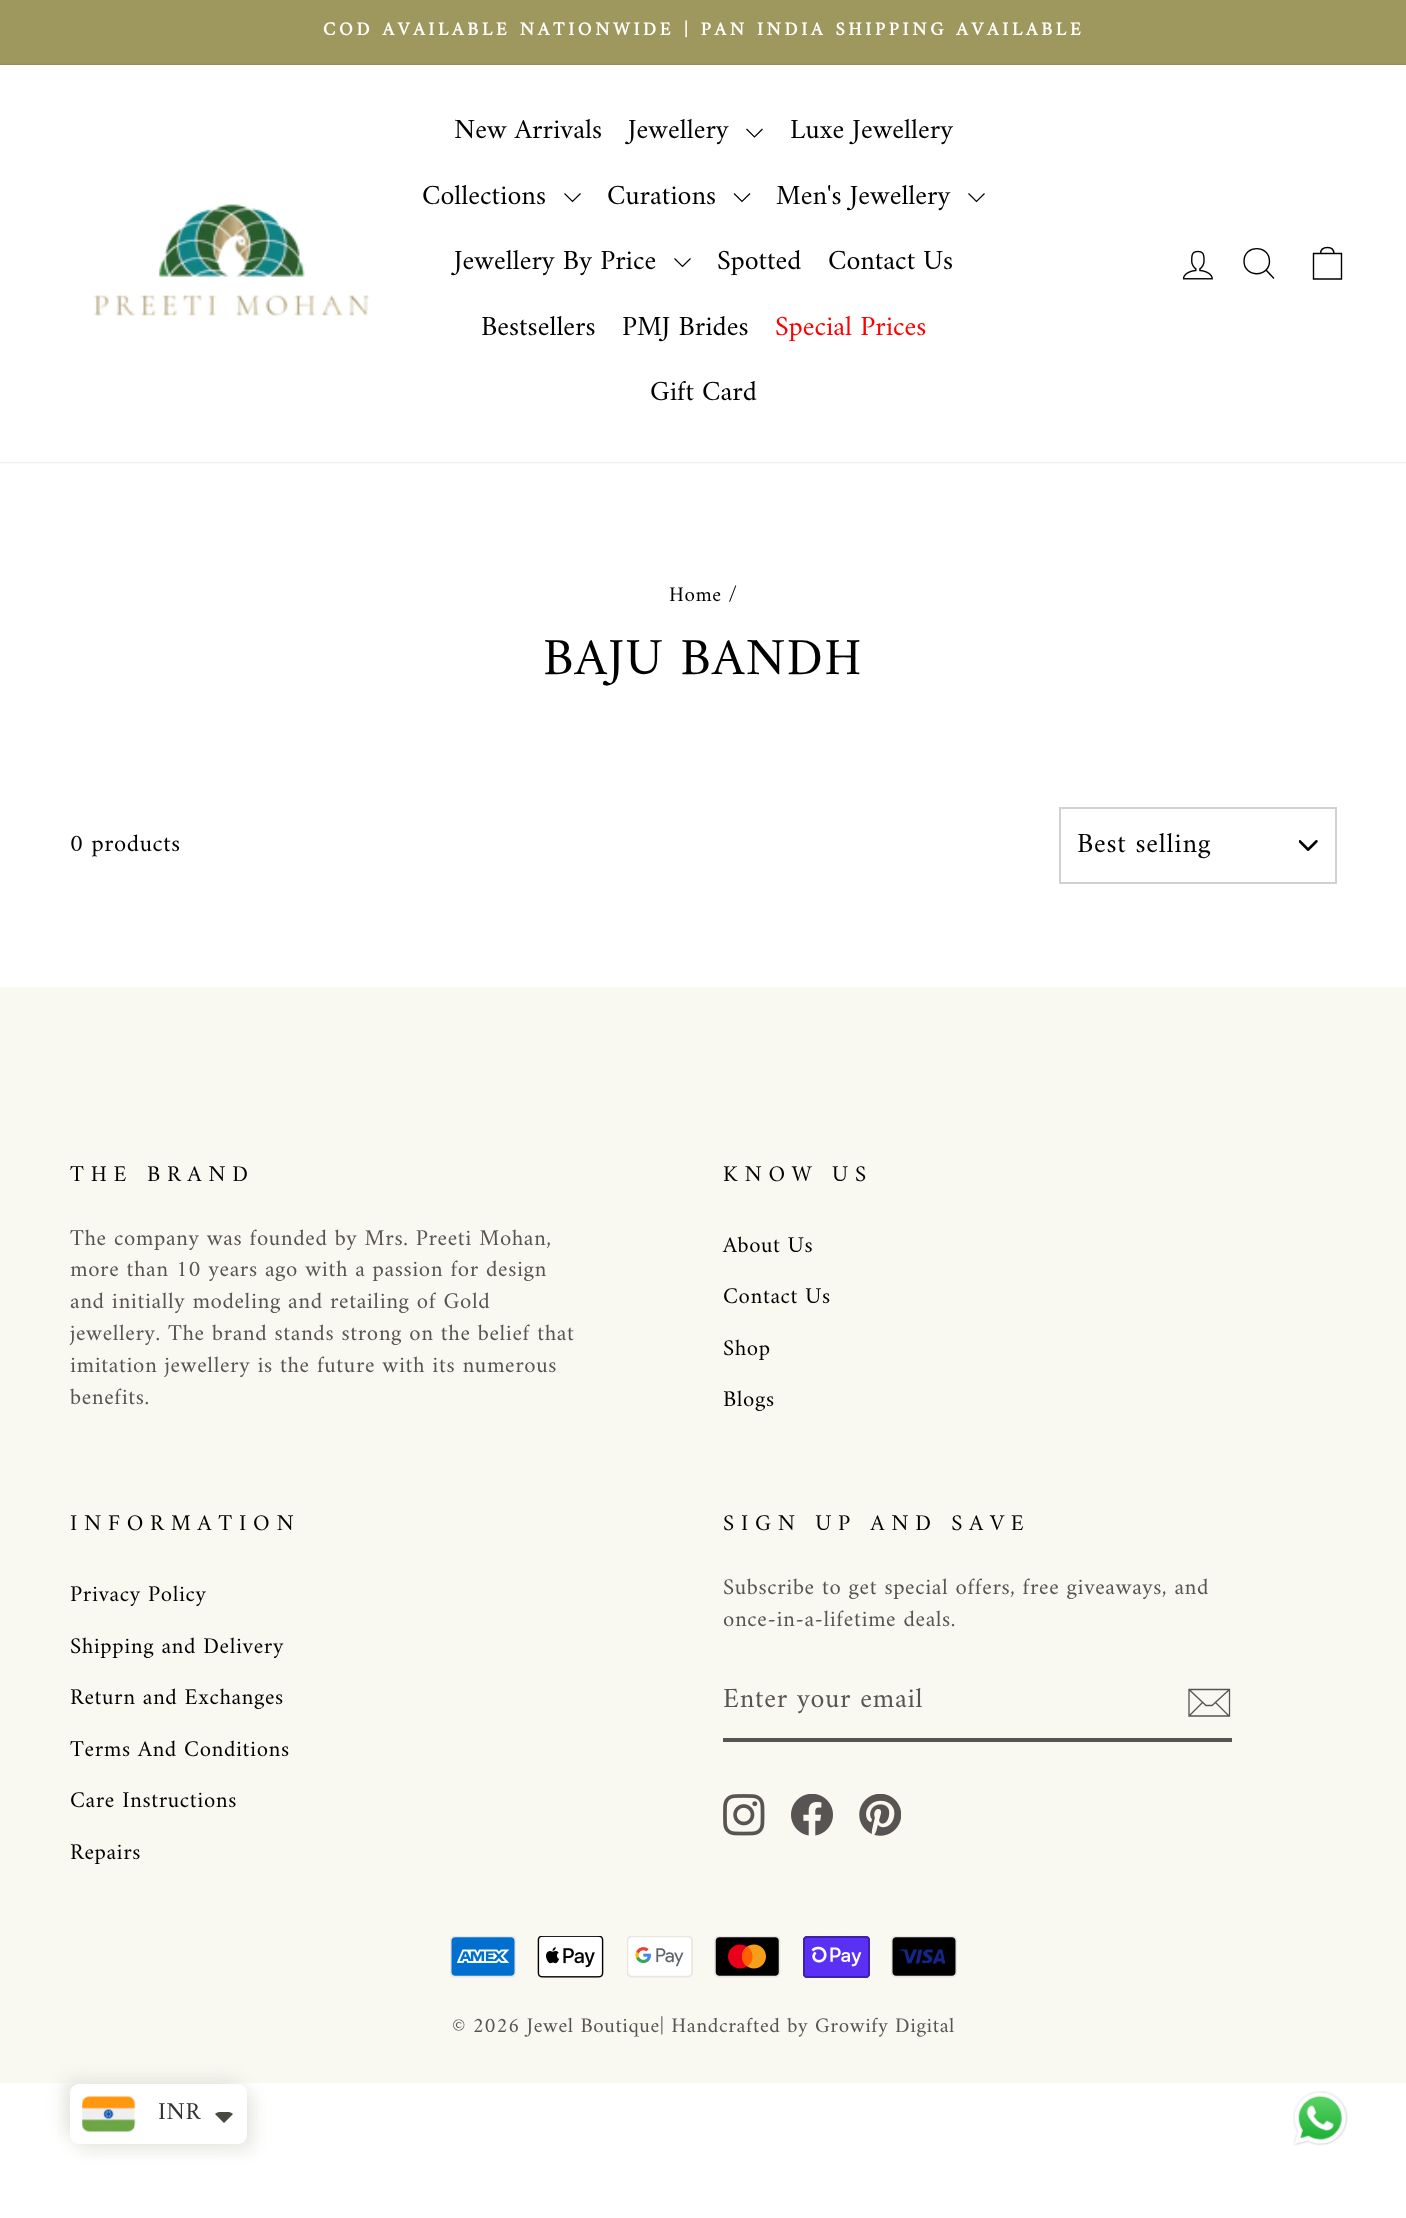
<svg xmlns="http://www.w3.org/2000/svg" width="1406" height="2218">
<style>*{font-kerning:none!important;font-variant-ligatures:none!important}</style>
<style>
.a{font:bold 18.75px Amiri;letter-spacing:3.75px;fill:#fff}
.b{font:28px Amiri;fill:#000}
.c{font:28px Amiri;fill:#f00}
.d{font:21px Amiri;letter-spacing:0.6px;fill:#000}
.e{font:52.5px Amiri;letter-spacing:1.25px;fill:#000}
.f{font:24.5px Amiri;letter-spacing:0.6px;fill:#000}
.g{font:28px Amiri;letter-spacing:0.75px;fill:#000}
.h{font:22.75px Amiri;letter-spacing:6.8px;fill:#000}
.i{font:22.75px Amiri;letter-spacing:0.6px;fill:#585453}
.j{font:22.75px Amiri;letter-spacing:0.6px;fill:#000}
.k{font:28px Amiri;letter-spacing:0.75px;fill:#585453}
.l{font:21px Amiri;letter-spacing:0.6px;fill:#585453}
.m{font:24.5px Amiri;letter-spacing:0.6px;fill:#333}
</style>
<defs>
<clipPath id="clip1"><path d="M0 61h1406v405h-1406zm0 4h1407v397h-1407z" clip-rule="evenodd"/></clipPath>
</defs>
<rect width="100%" height="100%" fill="#fff"/>
<path fill="#9e975e" d="M0 0h1406v65H0z"/>
<g clip-path="url(#clip1)">
<path fill="#00000033" filter="blur(1px)" d="M0 65h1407v397H0z"/>
</g>
<image href="1.png" x="94" y="204" width="276" height="113"/>
<path fill="none" stroke="#000" stroke-width="1.2" d="M746.5 129l8 8l8-8"/>
<path fill="none" stroke="#000" stroke-width="1.2" d="M564.5 193.5l8 8l8-8"/>
<path fill="none" stroke="#000" stroke-width="1.2" d="M734 193.5l8 8l8-8"/>
<path fill="none" stroke="#000" stroke-width="1.2" d="M968.5 193.5l8 8l8-8"/>
<path fill="none" stroke="#000" stroke-width="1.2" d="M674.5 258.5l8 8l8-8"/>
<image href="2.png" x="1182" y="250" width="31" height="30"/>
<path fill="none" stroke="#000" stroke-width="1.4" d="M1269.5 261c0 17-25.5 17-25.5 0c0-16.5 25.5-16.5 25.5 0zm4.5 17.5l-8-8.5"/>
<path fill="none" stroke="#000" stroke-width="1.4" d="M1313.5 253.5h28v25.5h-28zm7 .5c0-5 3-6.5 7-6.5c3.5 0 6.5 1.5 6.5 6.5"/>
<image href="3.png" x="1299" y="840" width="19" height="11"/>
<path fill="none" stroke="#d1d1d1" stroke-width="2" d="M1060 808h276v75H1060z"/>
<path fill="#faf9f1" d="M0 987h1406v1096H0z"/>
<path fill="#585453" d="M723 1738h509v4H723z"/>
<path fill="none" stroke="#585453" stroke-width="1.3" d="M1229.5 1716h-40.5v-26.5h40.5zm-40.5-26.5l17 16h6l17.5-16m-27 13l-13 13m39.5 .5l-13.5-13.5"/>
<image href="4.png" x="723" y="1794" width="42" height="42"/>
<image href="5.png" x="791" y="1794" width="42" height="42"/>
<image href="6.png" x="859" y="1794" width="42" height="42"/>
<image href="7.png" x="450" y="1936" width="66" height="42"/>
<image href="8.png" x="537" y="1936" width="67" height="42"/>
<image href="9.png" x="627" y="1936" width="66" height="42"/>
<image href="10.png" x="714" y="1936" width="67" height="42"/>
<image href="11.png" x="803" y="1936" width="67" height="42"/>
<image href="12.png" x="891" y="1936" width="66" height="42"/>
<rect fill="#e8e8e2" filter="blur(8px)" x="63" y="2077" width="177" height="60" rx="9"/>
<rect fill="#e8e8e2" filter="blur(8px)" x="77" y="2091" width="177" height="60" rx="9"/>
<rect fill="#fff" x="70" y="2084" width="177" height="60" rx="9"/>
<image href="13.png" x="82" y="2096" width="54" height="36"/>
<path fill="#474942" d="M215 2114c2.5-2.5 6-2 9-2c3 0 6.5-.5 9 2l-9 9z"/>
<image href="14.png" x="1293" y="2091" width="55" height="55"/>
<text class="a" x="323" y="35">COD AVAILABLE NATIONWIDE</text>
<text class="a" x="684" y="35">| PAN INDIA SHIPPING AVAILABLE</text>
<text class="b" x="454" y="138">New Arrivals</text>
<text class="b" x="628" y="138">Jewellery</text>
<text class="b" x="790" y="138">Luxe Jewellery</text>
<text class="b" x="422" y="204">Collections</text>
<text class="b" x="607" y="204">Curations</text>
<text class="b" x="776" y="204">Men's Jewellery</text>
<text class="b" x="454" y="269">Jewellery By Price</text>
<text class="b" x="717" y="269">Spotted</text>
<text class="b" x="828" y="269">Contact Us</text>
<text class="b" x="481" y="335">Bestsellers</text>
<text class="b" x="622" y="335">PMJ Brides</text>
<text class="c" x="775" y="335">Special Prices</text>
<text class="b" x="650" y="400">Gift Card</text>
<text class="d" x="669" y="601">Home /</text>
<text class="e" x="543" y="674">BAJU BANDH</text>
<text class="f" x="70" y="851">0 products</text>
<text class="g" x="1077" y="852">Best selling</text>
<text class="h" x="70" y="1181">THE BRAND</text>
<text class="i" x="70" y="1245">The company was founded by Mrs. Preeti Mohan,</text>
<text class="i" x="70" y="1276">more than 10 years ago with a passion for design</text>
<text class="i" x="70" y="1308">and initially modeling and retailing of Gold</text>
<text class="i" x="70" y="1340">jewellery. The brand stands strong on the belief that</text>
<text class="i" x="70" y="1372">imitation jewellery is the future with its numerous</text>
<text class="i" x="70" y="1404">benefits.</text>
<text class="h" x="723" y="1181">KNOW US</text>
<text class="j" x="723" y="1252">About Us</text>
<text class="j" x="723" y="1303">Contact Us</text>
<text class="j" x="723" y="1355">Shop</text>
<text class="j" x="723" y="1406">Blogs</text>
<text class="h" x="70" y="1530">INFORMATION</text>
<text class="j" x="70" y="1601">Privacy Policy</text>
<text class="j" x="70" y="1653">Shipping and Delivery</text>
<text class="j" x="70" y="1704">Return and Exchanges</text>
<text class="j" x="70" y="1756">Terms And Conditions</text>
<text class="j" x="70" y="1807">Care Instructions</text>
<text class="j" x="70" y="1859">Repairs</text>
<text class="h" x="723" y="1530">SIGN UP AND SAVE</text>
<text class="i" x="723" y="1594">Subscribe to get special offers, free giveaways, and</text>
<text class="i" x="723" y="1626">once-in-a-lifetime deals.</text>
<text class="k" x="723" y="1707">Enter your email</text>
<text class="l" x="452" y="2032">© 2026 Jewel Boutique| Handcrafted by Growify Digital</text>
<text class="m" x="158" y="2119">INR</text>
</svg>
